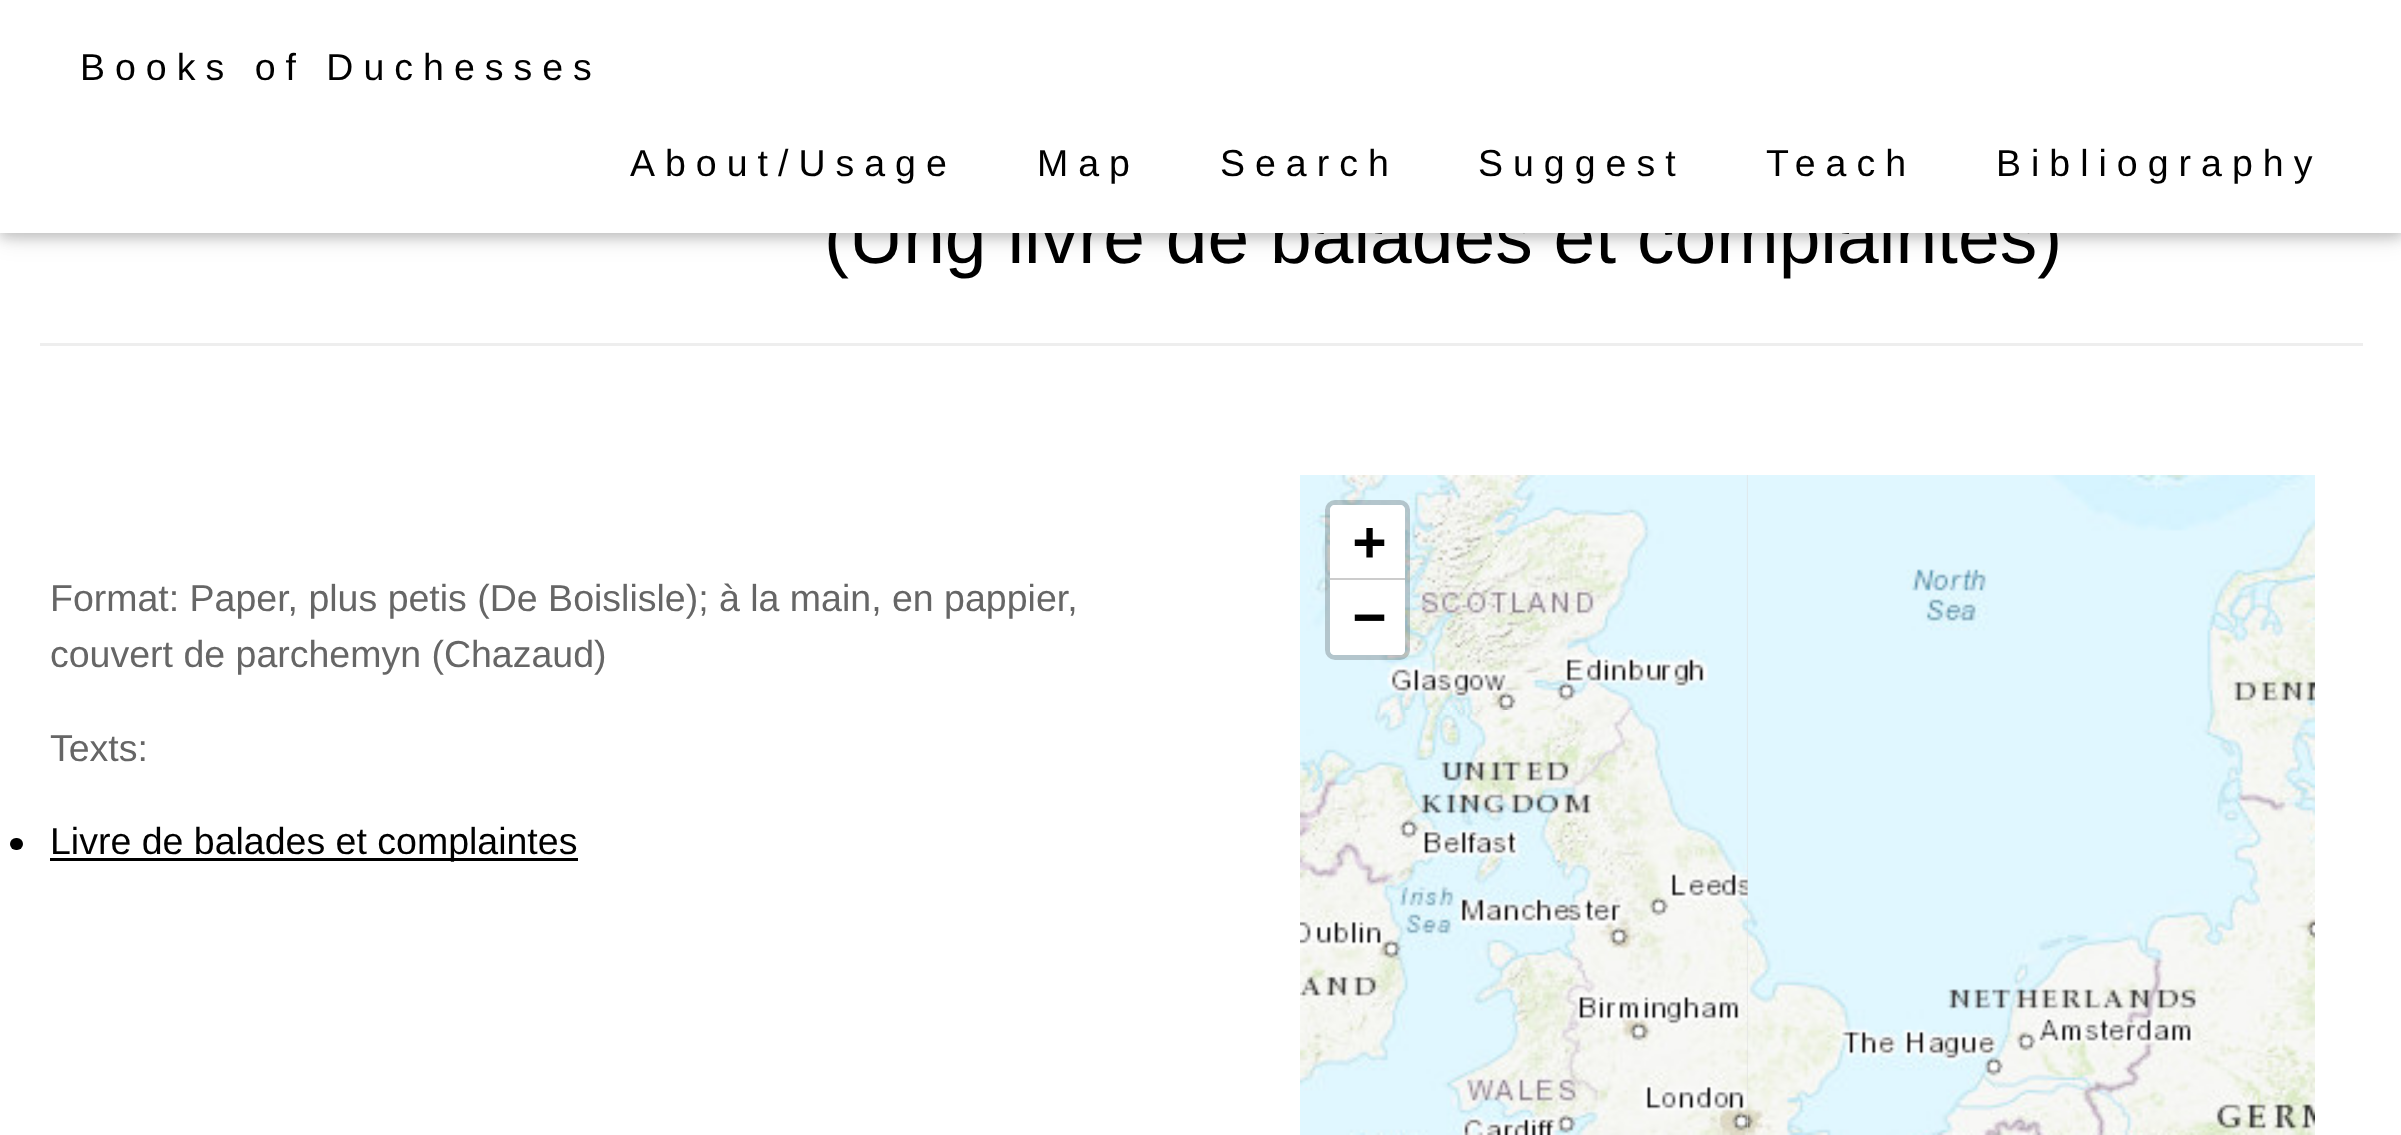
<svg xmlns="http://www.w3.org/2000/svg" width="2401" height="1135">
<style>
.a{font:75px Liberation Sans;fill:#000}
.b{font:37.5px Liberation Sans;letter-spacing:10px;fill:#000}
.c{font:37.5px Liberation Sans;fill:#666}
.d{font:37.5px Liberation Sans;fill:#000}
.e{font:bold 55px DejaVu Sans Mono;fill:#000}
</style>
<rect width="100%" height="100%" fill="#fff"/>
<path fill="#0000001f" filter="blur(12.5px)" d="M0 5h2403v233H0z"/>
<path fill="#00000029" filter="blur(6px)" d="M0 5h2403v233H0z"/>
<path fill="#eee" d="M40 343h2323v3H40z"/>
<rect fill="#000" x="10" y="838" width="13" height="12" rx="6"/>
<path fill="#000" d="M50 858h528v3H50z"/>
<path fill="#ddd" d="M1746 475h2v660H1746z"/>
<image href="1.png" x="1300" y="475" width="448" height="235"/>
<image href="2.png" x="1748" y="475" width="567" height="235"/>
<image href="3.png" x="1300" y="710" width="448" height="425"/>
<image href="4.png" x="1748" y="710" width="567" height="425"/>
<rect fill="none" stroke="#00000033" stroke-width="5" x="1327.5" y="502.5" width="80" height="155" rx="7.5"/>
<path fill="#fff" d="M1335 505h65c3 0 5 2 5 5v70h-75v-70c0-3 2-5 5-5z"/>
<path fill="#ccc" d="M1330 578h75v2H1330z"/>
<path fill="#fff" d="M1330 580h75v70c0 3-2 5-5 5h-65c-3 0-5-2-5-5z"/>
<text class="a" x="824" y="263">(Ung livre de balades et complaintes)</text>
<path fill="#fff" d="M0 0h2401v233H0z"/>
<text class="b" x="1996" y="176">Bibliography</text>
<text class="b" x="1766" y="176">Teach</text>
<text class="b" x="1478" y="176">Suggest</text>
<text class="b" x="1220" y="176">Search</text>
<text class="b" x="1037" y="176">Map</text>
<text class="b" x="630" y="176">About/Usage</text>
<text class="b" x="80" y="80">Books of Duchesses</text>
<text class="c" x="50" y="611">Format: Paper, plus petis (De Boislisle); à la main, en pappier,</text>
<text class="c" x="50" y="667">couvert de parchemyn (Chazaud)</text>
<text class="c" x="50" y="761">Texts:</text>
<text class="d" x="50" y="854">Livre de balades et complaintes</text>
<text class="e" x="1353" y="560">+</text>
<text class="e" x="1353" y="635">−</text>
</svg>
